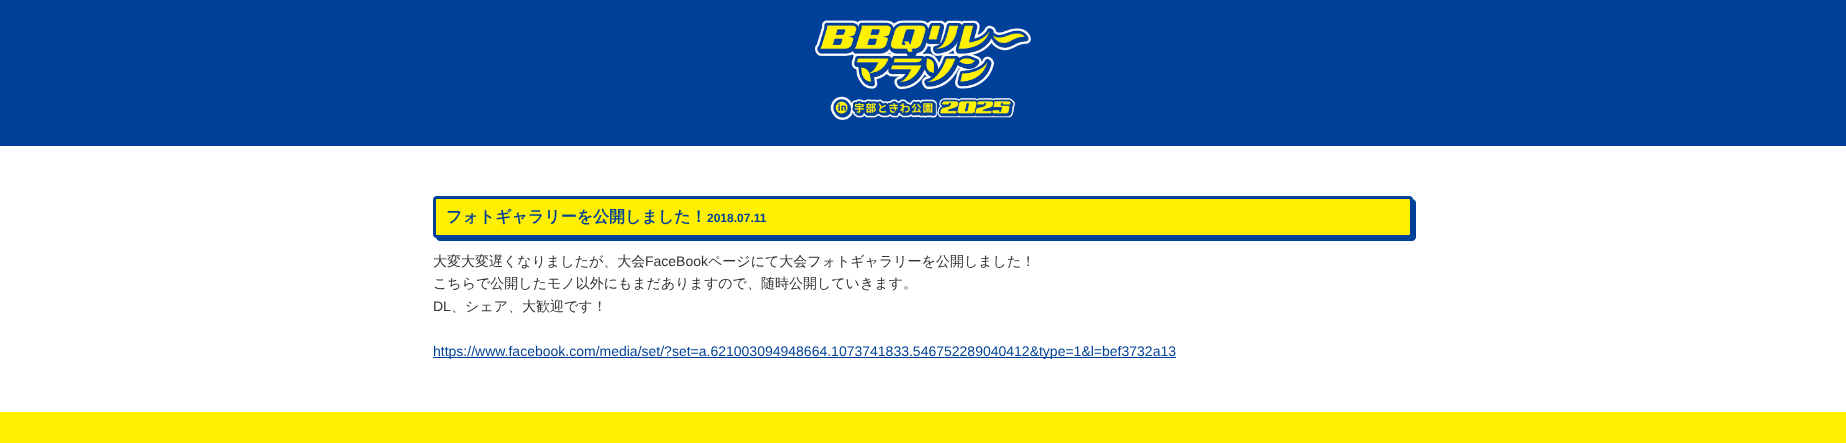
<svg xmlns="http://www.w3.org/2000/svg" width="1846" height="443">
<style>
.a{font:bold 16px WenQuanYi Zen Hei;fill:#024198}
.b{font:bold 12px Liberation Sans;fill:#024198}
.c{font:500 14px WenQuanYi Zen Hei;fill:#333}
.d{font:14px Liberation Sans;fill:#333}
.e{font:14px Liberation Sans;fill:#024198}
</style>
<rect width="100%" height="100%" fill="#fff"/>
<path fill="#014099" d="M0 0h1846v146H0z"/>
<image href="1.png" x="815" y="20" width="216" height="100"/>
<path fill="#014099" d="M436 238c1 2 2 3 4 3h972c2 0 4-2 4-4v-34c0-2-1-3-3-4v29c0 3 1 10-4 10z"/>
<rect fill="#fff000" stroke="#014099" stroke-width="3" x="434.5" y="197.5" width="977" height="39" rx="2.5"/>
<path fill="#003f99" d="M433 357h743v1H433z"/>
<path fill="#fff000" d="M0 412h1846v31H0z"/>
<text class="a" x="446" y="222">フォトギャラリーを公開しました！</text>
<text class="b" x="707" y="222">2018.07.11</text>
<text class="c" x="433" y="266">大変大変遅くなりましたが、大会</text>
<text class="d" x="645" y="266">FaceBook</text>
<text class="c" x="708" y="266">ページにて大会フォトギャラリーを公開しました！</text>
<text class="c" x="433" y="288">こちらで公開したモノ以外にもまだありますので、随時公開していきます。</text>
<text class="d" x="433" y="311">DL</text>
<text class="c" x="451" y="311">、シェア、大歓迎です！</text>
<text class="e" x="433" y="356">https://www.facebook.com/media/set/?set=a.621003094948664.1073741833.546752289040412&amp;type=1&amp;l=bef3732a13</text>
</svg>
